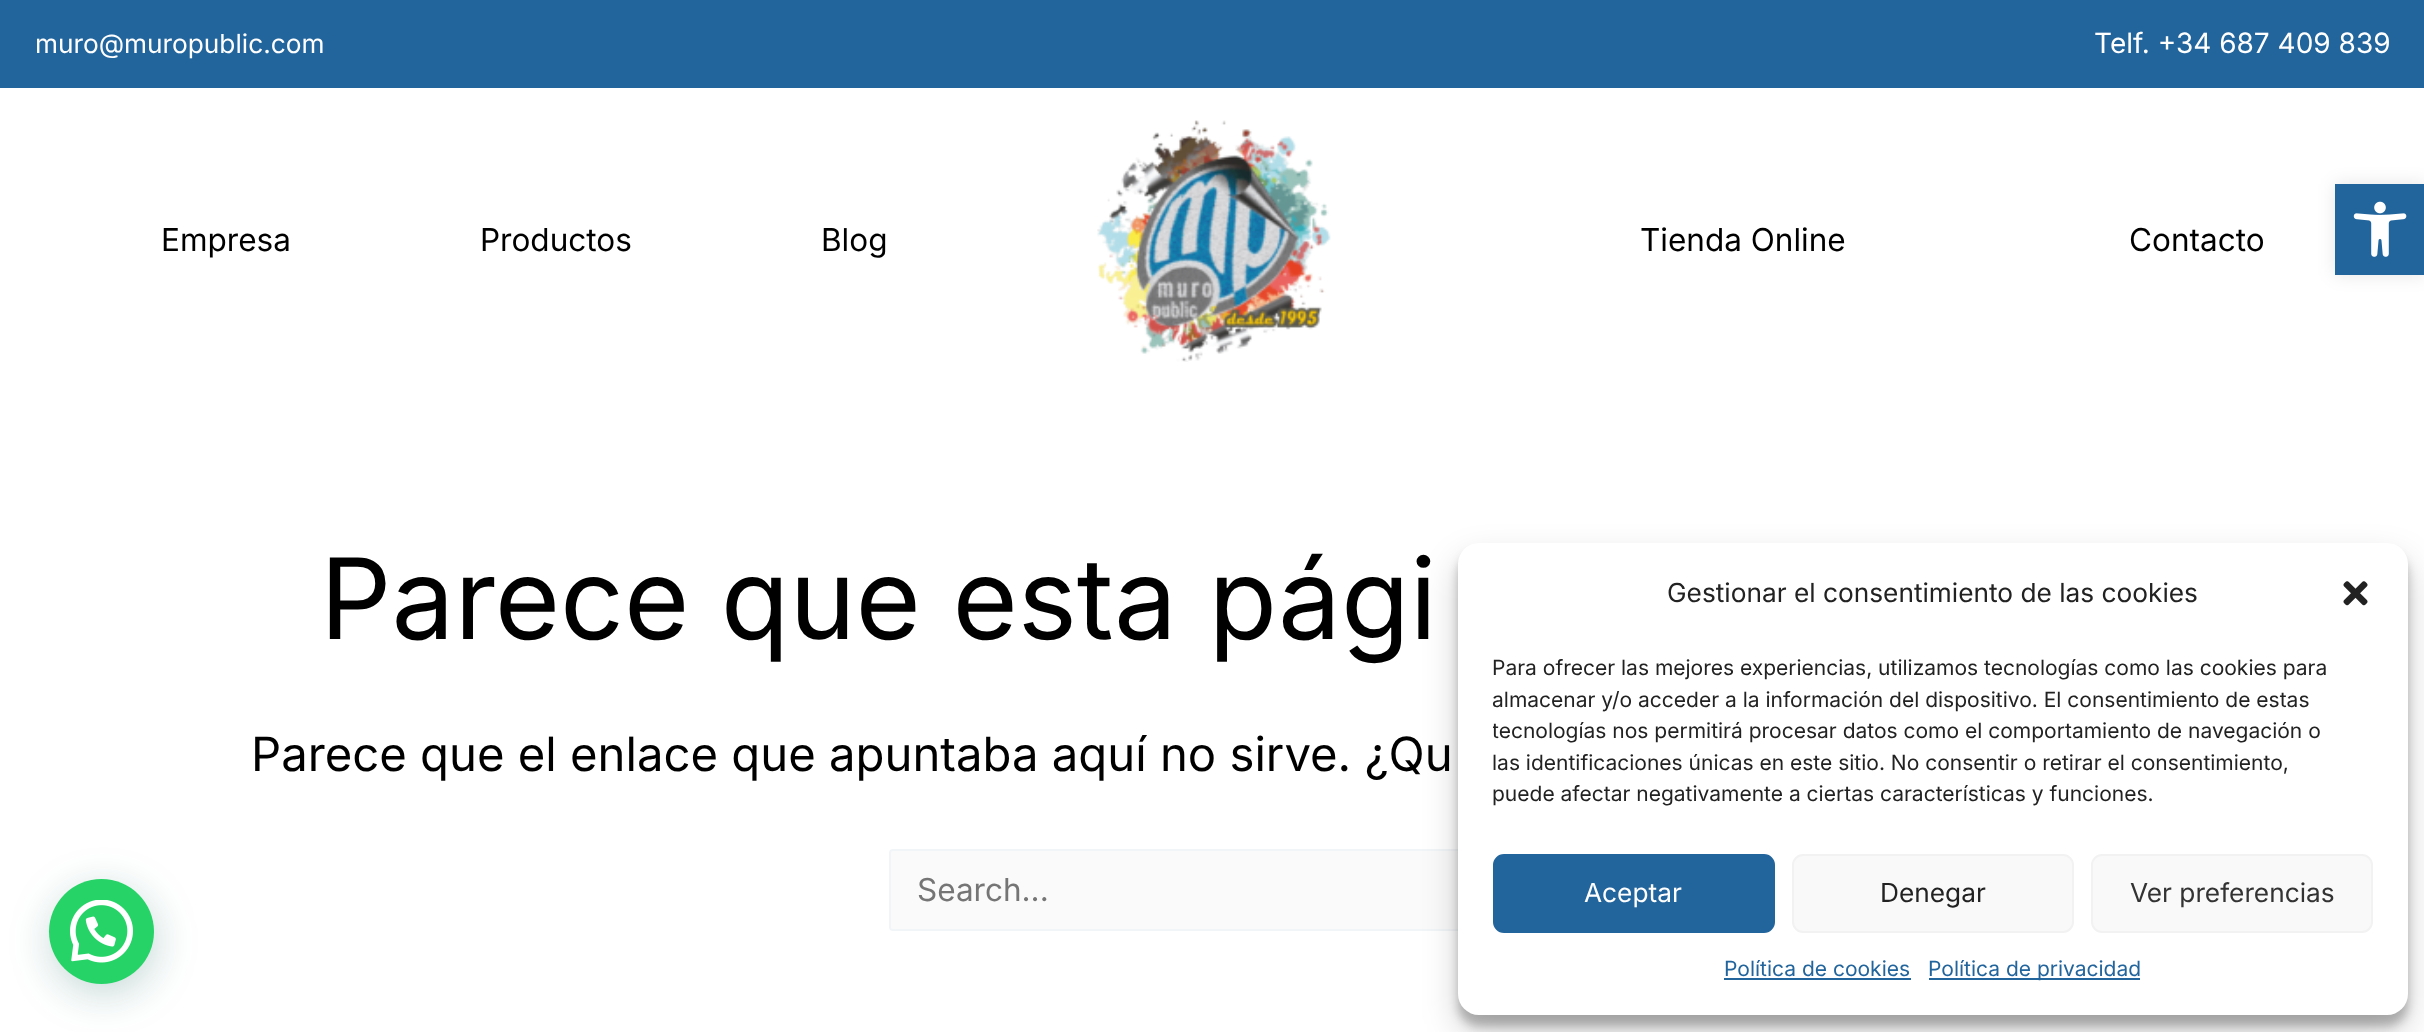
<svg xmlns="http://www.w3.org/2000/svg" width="2424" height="1032">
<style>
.a{font:26.25px Inter;fill:#fff}
.b{font:28px Inter;fill:#fff}
.c{font:31.5px Inter;fill:#000}
.d{font:112px Inter;fill:#000}
.e{font:47.25px Inter;fill:#000}
.f{font:31.5px Inter;fill:#757575}
.g{font:26.25px Inter;fill:#222}
.h{font:21px Inter;fill:#222}
.i{font:26.25px Inter;fill:#333}
.j{font:21px Inter;fill:#22649c}
</style>
<defs>
<clipPath id="clip1"><path d="M1493 653h880v166H1493z"/></clipPath>
</defs>
<rect width="100%" height="100%" fill="#fff"/>
<path fill="#22649c" d="M0 0h2424v88H0z"/>
<image href="1.png" x="1097" y="120" width="234" height="242"/>
<rect fill="#fafafa" stroke="#f2f5f7" stroke-width="2" x="890" y="850" width="646" height="80" rx="3"/>
<path fill="#0000001a" filter="blur(9px)" d="M2335 184h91v91H2335z"/>
<path fill="#22649c" d="M2335 184h89v91H2335z"/>
<image href="2.png" x="2353" y="201" width="54" height="56"/>
<rect fill="#075e543d" filter="blur(21px)" x="51" y="889" width="105" height="105" rx="52.5"/>
<circle fill="#25d366" cx="101.5" cy="931.5" r="52.5"/>
<image href="3.png" x="70" y="900" width="63" height="63"/>
<rect fill="#0000003b" filter="blur(5px)" x="1458" y="553" width="950" height="473" rx="21"/>
<rect fill="#00000030" filter="blur(17.5px)" x="1458" y="560" width="950" height="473" rx="21"/>
<rect fill="#fff" x="1458" y="543" width="950" height="472" rx="21"/>
<image href="4.png" x="2343" y="581" width="25" height="25"/>
<rect fill="#22649c" stroke="#22649c" stroke-width="2" x="1494" y="855" width="280" height="77" rx="10"/>
<rect fill="#f9f9f9" stroke="#f2f2f2" stroke-width="2" x="1793" y="855" width="280" height="77" rx="10"/>
<rect fill="#f9f9f9" stroke="#f2f2f2" stroke-width="2" x="2092" y="855" width="280" height="77" rx="10"/>
<path fill="#22649c" d="M1724 978h187v2H1724z"/>
<path fill="#22649c" d="M1929 978h211v2H1929z"/>
<text class="a" x="35" y="53">muro@muropublic.com</text>
<text class="b" x="2094" y="53">Telf. +34 687 409 839</text>
<text class="c" x="161" y="251">Empresa</text>
<text class="c" x="480" y="251">Productos</text>
<text class="c" x="821" y="251">Blog</text>
<text class="c" x="1640" y="251">Tienda Online</text>
<text class="c" x="2129" y="251">Contacto</text>
<text class="d" x="320" y="639">Parece que esta pági</text>
<text class="e" x="251" y="771">Parece que el enlace que apuntaba aquí no sirve. ¿Qu</text>
<text class="f" x="917" y="901">Search...</text>
<text class="g" x="1667" y="602">Gestionar el consentimiento de las cookies</text>
<text class="h" x="1492" y="675">Para ofrecer las mejores experiencias, utilizamos tecnologías como las cookies para</text>
<text class="h" x="1492" y="707">almacenar y/o acceder a la información del dispositivo. El consentimiento de estas</text>
<g clip-path="url(#clip1)">
<text class="h" x="1492" y="738">tecnologías nos permitirá procesar datos como el comportamiento de navegación o</text>
</g>
<text class="h" x="1492" y="770">las identificaciones únicas en este sitio. No consentir o retirar el consentimiento,</text>
<text class="h" x="1492" y="801">puede afectar negativamente a ciertas características y funciones.</text>
<text class="a" x="1584" y="902">Aceptar</text>
<text class="g" x="1880" y="902">Denegar</text>
<text class="i" x="2130" y="902">Ver preferencias</text>
<text class="j" x="1724" y="976">Política de cookies</text>
<text class="j" x="1928" y="976">Política de privacidad</text>
</svg>
